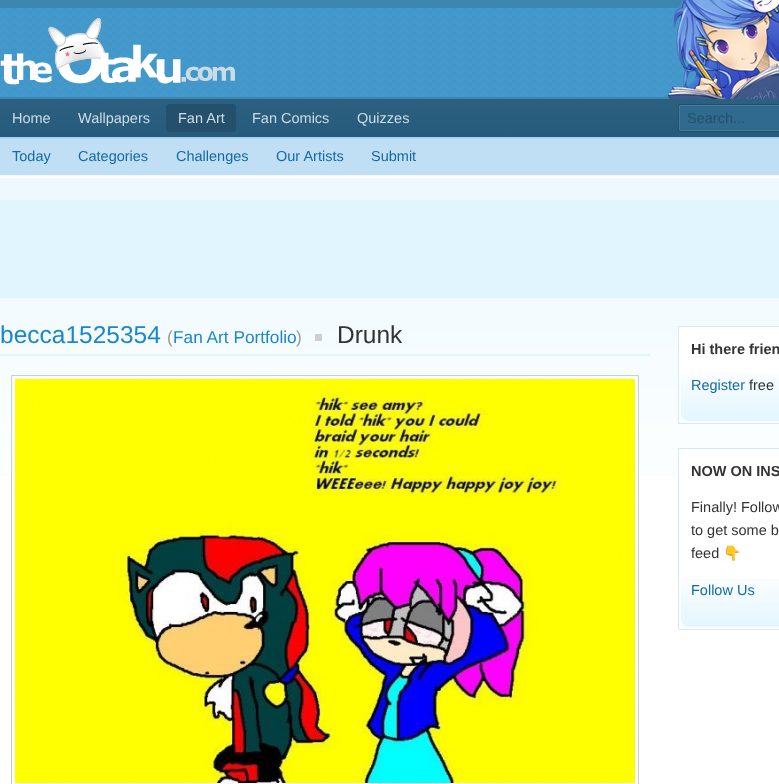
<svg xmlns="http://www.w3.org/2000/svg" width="779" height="784">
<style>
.a{font:14.5px Liberation Sans;fill:#cddce4}
.b{font:14.5px Liberation Sans;fill:#24506b}
.c{font:14.5px Liberation Sans;fill:#156aa1}
.d{font:24.5px Liberation Sans;fill:#1a86cb}
.e{font:17.25px Liberation Sans;fill:#999}
.f{font:17.25px Liberation Sans;fill:#1a86cb}
.g{font:24.5px Liberation Sans;fill:#333}
.h{font:bold 14.5px Liberation Sans;fill:#333}
.i{font:14.5px Liberation Sans;fill:#333}
.j{font:14.5px Noto Color Emoji;fill:#333}
</style>
<defs>
<linearGradient id="g1" gradientUnits="userSpaceOnUse" x1="390" y1="99" x2="390" y2="137"><stop offset="0" stop-color="#2b6080"/><stop offset="1" stop-color="#265b7b"/></linearGradient>
</defs>
<rect width="100%" height="100%" fill="#fff"/>
<path fill="#49c" d="M0 8h699v89H0z"/>
<image href="1.png" x="0" y="8" width="699" height="89"/>
<path fill="#3c86b2" d="M0 0h686v8H0z"/>
<image href="2.png" x="0" y="18" width="235" height="67"/>
<path fill="#3c86b2" d="M0 97h669v2H0z"/>
<image href="3.png" x="665" y="0" width="114" height="99"/>
<path fill="url(#g1)" d="M0 99h779v38H0z"/>
<rect fill="#24506b" x="166" y="104" width="70" height="28" rx="4"/>
<path fill="#306b8f" d="M680 104h99v28h-99c-1 0-2-1-2-2v-24c0-1 1-2 2-2z"/>
<rect fill="none" stroke="#457a9a" x="679.5" y="105.5" width="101" height="25" rx="0.5"/>
<rect fill="none" stroke="#24506b" x="678.5" y="104.5" width="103" height="27" rx="1.5"/>
<path fill="#c0dff4" d="M0 139h779v36H0z"/>
<path fill="#aad4f0" d="M0 137h779v2H0z"/>
<path fill="#f4f9fb" d="M0 175h779v1H0z"/>
<image href="4.png" x="0" y="178" width="779" height="298"/>
<path fill="#e1f5ff" d="M0 200h779v98H0z"/>
<path fill="#e1f5ff" d="M0 354h650v2H0z"/>
<path fill="#cecece" d="M315 334h7v7H315z"/>
<path fill="none" stroke="#ccc" d="M11.5 375.5h627v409H11.5z"/>
<image href="5.png" x="15" y="379" width="620" height="404"/>
<path fill="#fff" stroke="#d4eaf7" d="M678.5 326.5h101v97H678.5z"/>
<image href="6.png" x="681" y="373" width="98" height="48"/>
<path fill="#fff" d="M679 449h100v27H679z"/>
<path fill="none" stroke="#d4eaf7" d="M678.5 448.5h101v181H678.5z"/>
<image href="6.png" x="681" y="579" width="98" height="48"/>
<text class="a" x="12" y="123">Home</text>
<text class="a" x="78" y="123">Wallpapers</text>
<text class="a" x="178" y="123">Fan Art</text>
<text class="a" x="252" y="123">Fan Comics</text>
<text class="a" x="357" y="123">Quizzes</text>
<text class="b" x="687" y="123">Search...</text>
<text class="c" x="12" y="161">Today</text>
<text class="c" x="78" y="161">Categories</text>
<text class="c" x="176" y="161">Challenges</text>
<text class="c" x="276" y="161">Our Artists</text>
<text class="c" x="371" y="161">Submit</text>
<text class="d" x="0" y="343">becca1525354</text>
<text class="e" x="167" y="343">(</text>
<text class="f" x="173" y="343">Fan Art Portfolio</text>
<text class="e" x="296" y="343">)</text>
<text class="g" x="337" y="343">Drunk</text>
<text class="h" x="691" y="354">Hi there frien</text>
<text class="c" x="691" y="390">Register</text>
<text class="i" x="749" y="390">free</text>
<text class="h" x="691" y="476">NOW ON INS</text>
<text class="i" x="691" y="512">Finally! Follow</text>
<text class="i" x="691" y="535">to get some b</text>
<text class="i" x="691" y="558">feed</text>
<text class="j" x="723" y="558">👇</text>
<text class="c" x="691" y="595">Follow Us</text>
</svg>
